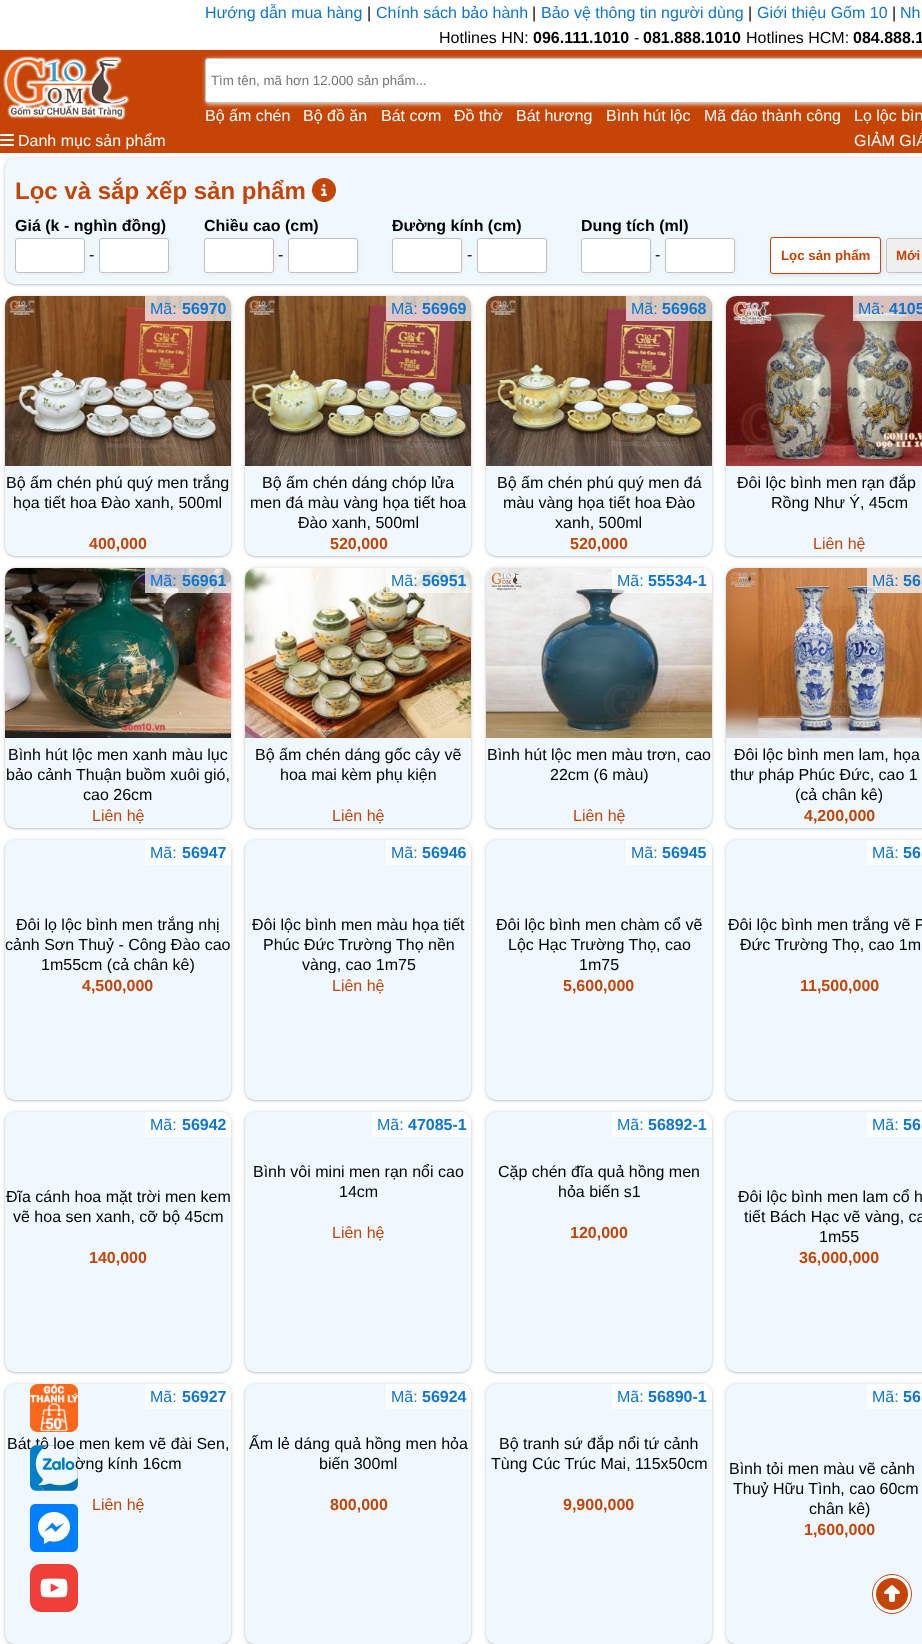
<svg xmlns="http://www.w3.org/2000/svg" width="922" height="1644">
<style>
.a{font:16px Liberation Sans;fill:#0c76d0}
.b{font:16px Liberation Sans;fill:#000}
.c{font:bold 16px Liberation Sans;fill:#000}
.d{font:13.3px Liberation Sans;fill:#757575}
.e{font:16px Liberation Sans;fill:#fff}
.f{font:bold 24px Liberation Sans;fill:#c64506}
.g{font:bold 13.3px Liberation Sans;fill:#c64506}
.h{font:bold 16px Liberation Sans;fill:#0c76d0}
.i{font:bold 16px Liberation Sans;fill:#c64506}
.j{font:16px Liberation Sans;fill:#c64506}
</style>
<defs>
<clipPath id="clip1"><path d="M726 745h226v58H726z"/></clipPath>
<clipPath id="clip2"><path d="M5 915h226v58H5z"/></clipPath>
<clipPath id="clip3"><path d="M245 915h226v58H245z"/></clipPath>
</defs>
<rect width="100%" height="100%" fill="#fff"/>
<path fill="#c64506" d="M0 50h922v103H0z"/>
<image href="1.png" x="3" y="56" width="127" height="65"/>
<rect fill="#ebebeb" filter="blur(2px)" x="206" y="59" width="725" height="45" rx="3"/>
<rect fill="#fff" stroke="#c2c2c2" x="205.5" y="58.5" width="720" height="44" rx="2.5"/>
<image href="2.png" x="0" y="134" width="14" height="12"/>
<rect fill="#0000004d" filter="blur(1.5px)" x="6" y="160" width="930" height="124" rx="9"/>
<rect fill="#32325d40" filter="blur(2.5px)" x="6" y="159" width="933" height="124" rx="9"/>
<rect fill="#f0f8ff" x="5" y="158" width="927" height="126" rx="10"/>
<image href="3.png" x="312" y="178" width="24" height="24"/>
<rect fill="#ebebeb" filter="blur(2px)" x="16" y="239" width="70" height="35" rx="3"/>
<rect fill="#fff" stroke="#c2c2c2" x="15.5" y="238.5" width="69" height="34" rx="2.5"/>
<rect fill="#ebebeb" filter="blur(2px)" x="100" y="239" width="70" height="35" rx="3"/>
<rect fill="#fff" stroke="#c2c2c2" x="99.5" y="238.5" width="69" height="34" rx="2.5"/>
<rect fill="#ebebeb" filter="blur(2px)" x="205" y="239" width="70" height="35" rx="3"/>
<rect fill="#fff" stroke="#c2c2c2" x="204.5" y="238.5" width="69" height="34" rx="2.5"/>
<rect fill="#ebebeb" filter="blur(2px)" x="289" y="239" width="70" height="35" rx="3"/>
<rect fill="#fff" stroke="#c2c2c2" x="288.5" y="238.5" width="69" height="34" rx="2.5"/>
<rect fill="#ebebeb" filter="blur(2px)" x="393" y="239" width="70" height="35" rx="3"/>
<rect fill="#fff" stroke="#c2c2c2" x="392.5" y="238.5" width="69" height="34" rx="2.5"/>
<rect fill="#ebebeb" filter="blur(2px)" x="478" y="239" width="70" height="35" rx="3"/>
<rect fill="#fff" stroke="#c2c2c2" x="477.5" y="238.5" width="69" height="34" rx="2.5"/>
<rect fill="#ebebeb" filter="blur(2px)" x="582" y="239" width="70" height="35" rx="3"/>
<rect fill="#fff" stroke="#c2c2c2" x="581.5" y="238.5" width="69" height="34" rx="2.5"/>
<rect fill="#ebebeb" filter="blur(2px)" x="666" y="239" width="70" height="35" rx="3"/>
<rect fill="#fff" stroke="#c2c2c2" x="665.5" y="238.5" width="69" height="34" rx="2.5"/>
<rect fill="#ebebeb" filter="blur(2px)" x="887" y="239" width="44" height="35" rx="3"/>
<rect fill="#efefef" stroke="#c2c2c2" x="886.5" y="238.5" width="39" height="34" rx="2.5"/>
<rect fill="#dadada" filter="blur(2px)" x="771" y="238" width="111" height="37" rx="3"/>
<rect fill="#fff" stroke="#c64506" x="770.5" y="237.5" width="110" height="36" rx="2.5"/>
<rect fill="#0000004d" filter="blur(1.5px)" x="6" y="298" width="224" height="258" rx="9"/>
<rect fill="#32325d40" filter="blur(2.5px)" x="6" y="297" width="224" height="258" rx="9"/>
<rect fill="#f0f8ff" x="5" y="296" width="226" height="260" rx="10"/>
<image href="4.png" x="5" y="296" width="226" height="170"/>
<path fill="#ffffffb3" d="M145 296h76c5.5 0 10 4.5 10 10v15h-86z"/>
<rect fill="#0000004d" filter="blur(1.5px)" x="246" y="298" width="224" height="258" rx="9"/>
<rect fill="#32325d40" filter="blur(2.5px)" x="246" y="297" width="224" height="258" rx="9"/>
<rect fill="#f0f8ff" x="245" y="296" width="226" height="260" rx="10"/>
<image href="5.png" x="245" y="296" width="226" height="170"/>
<path fill="#ffffffb3" d="M386 296h75c5.5 0 10 4.5 10 10v15h-85z"/>
<rect fill="#0000004d" filter="blur(1.5px)" x="487" y="298" width="224" height="258" rx="9"/>
<rect fill="#32325d40" filter="blur(2.5px)" x="487" y="297" width="224" height="258" rx="9"/>
<rect fill="#f0f8ff" x="486" y="296" width="226" height="260" rx="10"/>
<image href="6.png" x="486" y="296" width="226" height="170"/>
<path fill="#ffffffb3" d="M626 296h76c5.5 0 10 4.5 10 10v15h-86z"/>
<rect fill="#0000004d" filter="blur(1.5px)" x="727" y="298" width="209" height="258" rx="9"/>
<rect fill="#32325d40" filter="blur(2.5px)" x="727" y="297" width="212" height="258" rx="9"/>
<rect fill="#f0f8ff" x="726" y="296" width="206" height="260" rx="10"/>
<image href="7.png" x="726" y="296" width="196" height="170"/>
<path fill="#ffffffb3" d="M853 296h69v25H853z"/>
<rect fill="#0000004d" filter="blur(1.5px)" x="6" y="570" width="224" height="258" rx="9"/>
<rect fill="#32325d40" filter="blur(2.5px)" x="6" y="569" width="224" height="258" rx="9"/>
<rect fill="#f0f8ff" x="5" y="568" width="226" height="260" rx="10"/>
<image href="8.png" x="5" y="568" width="226" height="170"/>
<path fill="#ffffffb3" d="M145 568h76c5.5 0 10 4.5 10 10v15h-86z"/>
<rect fill="#0000004d" filter="blur(1.5px)" x="246" y="570" width="224" height="258" rx="9"/>
<rect fill="#32325d40" filter="blur(2.5px)" x="246" y="569" width="224" height="258" rx="9"/>
<rect fill="#f0f8ff" x="245" y="568" width="226" height="260" rx="10"/>
<image href="9.png" x="245" y="568" width="226" height="170"/>
<path fill="#ffffffb3" d="M386 568h75c5.5 0 10 4.5 10 10v15h-85z"/>
<rect fill="#0000004d" filter="blur(1.5px)" x="487" y="570" width="224" height="258" rx="9"/>
<rect fill="#32325d40" filter="blur(2.5px)" x="487" y="569" width="224" height="258" rx="9"/>
<rect fill="#f0f8ff" x="486" y="568" width="226" height="260" rx="10"/>
<image href="10.png" x="486" y="568" width="226" height="170"/>
<path fill="#ffffffb3" d="M612 568h90c5.5 0 10 4.5 10 10v15h-100z"/>
<rect fill="#0000004d" filter="blur(1.5px)" x="727" y="570" width="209" height="258" rx="9"/>
<rect fill="#32325d40" filter="blur(2.5px)" x="727" y="569" width="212" height="258" rx="9"/>
<rect fill="#f0f8ff" x="726" y="568" width="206" height="260" rx="10"/>
<image href="11.png" x="726" y="568" width="196" height="170"/>
<path fill="#ffffffb3" d="M867 568h55v25H867z"/>
<rect fill="#0000004d" filter="blur(1.5px)" x="6" y="842" width="224" height="258" rx="9"/>
<rect fill="#32325d40" filter="blur(2.5px)" x="6" y="841" width="224" height="258" rx="9"/>
<rect fill="#f0f8ff" x="5" y="840" width="226" height="260" rx="10"/>
<path fill="#ffffffb3" d="M145 840h76c5.5 0 10 4.5 10 10v15h-86z"/>
<rect fill="#0000004d" filter="blur(1.5px)" x="246" y="842" width="224" height="258" rx="9"/>
<rect fill="#32325d40" filter="blur(2.5px)" x="246" y="841" width="224" height="258" rx="9"/>
<rect fill="#f0f8ff" x="245" y="840" width="226" height="260" rx="10"/>
<path fill="#ffffffb3" d="M386 840h75c5.5 0 10 4.5 10 10v15h-85z"/>
<rect fill="#0000004d" filter="blur(1.5px)" x="487" y="842" width="224" height="258" rx="9"/>
<rect fill="#32325d40" filter="blur(2.5px)" x="487" y="841" width="224" height="258" rx="9"/>
<rect fill="#f0f8ff" x="486" y="840" width="226" height="260" rx="10"/>
<path fill="#ffffffb3" d="M626 840h76c5.5 0 10 4.5 10 10v15h-86z"/>
<rect fill="#0000004d" filter="blur(1.5px)" x="727" y="842" width="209" height="258" rx="9"/>
<rect fill="#32325d40" filter="blur(2.5px)" x="727" y="841" width="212" height="258" rx="9"/>
<rect fill="#f0f8ff" x="726" y="840" width="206" height="260" rx="10"/>
<path fill="#fbfdff" d="M867 840h55v25H867z"/>
<rect fill="#0000004d" filter="blur(1.5px)" x="6" y="1114" width="224" height="258" rx="9"/>
<rect fill="#32325d40" filter="blur(2.5px)" x="6" y="1113" width="224" height="258" rx="9"/>
<rect fill="#f0f8ff" x="5" y="1112" width="226" height="260" rx="10"/>
<path fill="#ffffffb3" d="M145 1112h76c5.5 0 10 4.5 10 10v15h-86z"/>
<rect fill="#0000004d" filter="blur(1.5px)" x="246" y="1114" width="224" height="258" rx="9"/>
<rect fill="#32325d40" filter="blur(2.5px)" x="246" y="1113" width="224" height="258" rx="9"/>
<rect fill="#f0f8ff" x="245" y="1112" width="226" height="260" rx="10"/>
<path fill="#ffffffb3" d="M372 1112h89c5.5 0 10 4.5 10 10v15h-99z"/>
<rect fill="#0000004d" filter="blur(1.5px)" x="487" y="1114" width="224" height="258" rx="9"/>
<rect fill="#32325d40" filter="blur(2.5px)" x="487" y="1113" width="224" height="258" rx="9"/>
<rect fill="#f0f8ff" x="486" y="1112" width="226" height="260" rx="10"/>
<path fill="#ffffffb3" d="M612 1112h90c5.5 0 10 4.5 10 10v15h-100z"/>
<rect fill="#0000004d" filter="blur(1.5px)" x="727" y="1114" width="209" height="258" rx="9"/>
<rect fill="#32325d40" filter="blur(2.5px)" x="727" y="1113" width="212" height="258" rx="9"/>
<rect fill="#f0f8ff" x="726" y="1112" width="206" height="260" rx="10"/>
<path fill="#fbfdff" d="M867 1112h55v25H867z"/>
<rect fill="#0000004d" filter="blur(1.5px)" x="6" y="1386" width="224" height="258" rx="9"/>
<rect fill="#32325d40" filter="blur(2.5px)" x="6" y="1385" width="224" height="258" rx="9"/>
<rect fill="#f0f8ff" x="5" y="1384" width="226" height="260" rx="10"/>
<path fill="#ffffffb3" d="M145 1384h76c5.5 0 10 4.5 10 10v15h-86z"/>
<rect fill="#0000004d" filter="blur(1.5px)" x="246" y="1386" width="224" height="258" rx="9"/>
<rect fill="#32325d40" filter="blur(2.5px)" x="246" y="1385" width="224" height="258" rx="9"/>
<rect fill="#f0f8ff" x="245" y="1384" width="226" height="260" rx="10"/>
<path fill="#ffffffb3" d="M386 1384h75c5.5 0 10 4.5 10 10v15h-85z"/>
<rect fill="#0000004d" filter="blur(1.5px)" x="487" y="1386" width="224" height="258" rx="9"/>
<rect fill="#32325d40" filter="blur(2.5px)" x="487" y="1385" width="224" height="258" rx="9"/>
<rect fill="#f0f8ff" x="486" y="1384" width="226" height="260" rx="10"/>
<path fill="#ffffffb3" d="M612 1384h90c5.5 0 10 4.5 10 10v15h-100z"/>
<rect fill="#0000004d" filter="blur(1.5px)" x="727" y="1386" width="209" height="258" rx="9"/>
<rect fill="#32325d40" filter="blur(2.5px)" x="727" y="1385" width="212" height="258" rx="9"/>
<rect fill="#f0f8ff" x="726" y="1384" width="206" height="260" rx="10"/>
<path fill="#fbfdff" d="M867 1384h55v25H867z"/>
<image href="12.png" x="30" y="1384" width="48" height="48"/>
<image href="14.png" x="30" y="1504" width="48" height="48"/>
<image href="15.png" x="30" y="1564" width="48" height="48"/>
<circle fill="#fff" stroke="#c64506" cx="892" cy="1594" r="19.5"/>
<image href="16.png" x="876" y="1578" width="32" height="32"/>
<text class="a" x="205" y="18">Hướng dẫn mua hàng</text>
<text class="b" x="367" y="18">|</text>
<text class="a" x="376" y="18">Chính sách bảo hành</text>
<text class="b" x="532" y="18">|</text>
<text class="a" x="541" y="18">Bảo vệ thông tin người dùng</text>
<text class="b" x="748" y="18">|</text>
<text class="a" x="757" y="18">Giới thiệu Gốm 10</text>
<text class="b" x="892" y="18">|</text>
<text class="a" x="900" y="18">Nh</text>
<text class="b" x="439" y="43">Hotlines HN:</text>
<text class="c" x="533" y="43">096.111.1010</text>
<text class="b" x="634" y="43">-</text>
<text class="c" x="643" y="43">081.888.1010</text>
<text class="b" x="746" y="43">Hotlines HCM:</text>
<text class="c" x="853" y="43">084.888.1</text>
<text class="d" x="211" y="85">Tìm tên, mã hơn 12.000 sản phẩm...</text>
<text class="e" x="205" y="121">Bộ ấm chén</text>
<text class="e" x="303" y="121">Bộ đồ ăn</text>
<text class="e" x="381" y="121">Bát cơm</text>
<text class="e" x="454" y="121">Đồ thờ</text>
<text class="e" x="516" y="121">Bát hương</text>
<text class="e" x="606" y="121">Bình hút lộc</text>
<text class="e" x="704" y="121">Mã đáo thành công</text>
<text class="e" x="854" y="121">Lọ lộc bìn</text>
<text class="e" x="18" y="146">Danh mục sản phẩm</text>
<text class="e" x="854" y="146">GIẢM GIÁ</text>
<text class="f" x="15" y="199">Lọc và sắp xếp sản phẩm</text>
<text class="c" x="15" y="231">Giá (k - nghìn đồng)</text>
<text class="b" x="89" y="260">-</text>
<text class="c" x="204" y="231">Chiều cao (cm)</text>
<text class="b" x="278" y="260">-</text>
<text class="c" x="392" y="231">Đường kính (cm)</text>
<text class="b" x="467" y="260">-</text>
<text class="c" x="581" y="231">Dung tích (ml)</text>
<text class="b" x="655" y="260">-</text>
<text class="g" x="781" y="260">Lọc sản phẩm</text>
<text class="g" x="896" y="260">Mới</text>
<text class="a" x="150" y="314">Mã:</text>
<text class="h" x="182" y="314">56970</text>
<text class="b" x="6" y="488">Bộ ấm chén phú quý men trắng</text>
<text class="b" x="13" y="508">họa tiết hoa Đào xanh, 500ml</text>
<text class="i" x="89" y="549">400,000</text>
<text class="a" x="391" y="314">Mã:</text>
<text class="h" x="422" y="314">56969</text>
<text class="b" x="262" y="488">Bộ ấm chén dáng chóp lửa</text>
<text class="b" x="250" y="508">men đá màu vàng họa tiết hoa</text>
<text class="b" x="298" y="528">Đào xanh, 500ml</text>
<text class="i" x="330" y="549">520,000</text>
<text class="a" x="631" y="314">Mã:</text>
<text class="h" x="662" y="314">56968</text>
<text class="b" x="497" y="488">Bộ ấm chén phú quý men đá</text>
<text class="b" x="503" y="508">màu vàng họa tiết hoa Đào</text>
<text class="b" x="555" y="528">xanh, 500ml</text>
<text class="i" x="570" y="549">520,000</text>
<text class="a" x="858" y="314">Mã:</text>
<text class="h" x="889" y="314">4105</text>
<text class="b" x="737" y="488">Đôi lộc bình men rạn đắp</text>
<text class="b" x="771" y="508">Rồng Như Ý, 45cm</text>
<text class="j" x="813" y="549">Liên hệ</text>
<text class="a" x="150" y="586">Mã:</text>
<text class="h" x="182" y="586">56961</text>
<text class="b" x="8" y="760">Bình hút lộc men xanh màu lục</text>
<text class="b" x="6" y="780">bảo cảnh Thuận buồm xuôi gió,</text>
<text class="b" x="83" y="800">cao 26cm</text>
<text class="j" x="92" y="821">Liên hệ</text>
<text class="a" x="391" y="586">Mã:</text>
<text class="h" x="422" y="586">56951</text>
<text class="b" x="255" y="760">Bộ ấm chén dáng gốc cây vẽ</text>
<text class="b" x="280" y="780">hoa mai kèm phụ kiện</text>
<text class="j" x="332" y="821">Liên hệ</text>
<text class="a" x="617" y="586">Mã:</text>
<text class="h" x="648" y="586">55534-1</text>
<text class="b" x="487" y="760">Bình hút lộc men màu trơn, cao</text>
<text class="b" x="550" y="780">22cm (6 màu)</text>
<text class="j" x="573" y="821">Liên hệ</text>
<text class="a" x="872" y="586">Mã:</text>
<text class="h" x="903" y="586">56</text>
<text class="b" x="734" y="760">Đôi lộc bình men lam, họa</text>
<text class="b" x="730" y="780">thư pháp Phúc Đức, cao 1</text>
<g clip-path="url(#clip1)">
<text class="b" x="795" y="800">(cả chân kê)</text>
</g>
<text class="i" x="804" y="821">4,200,000</text>
<text class="a" x="150" y="858">Mã:</text>
<text class="h" x="182" y="858">56947</text>
<text class="b" x="16" y="930">Đôi lọ lộc bình men trắng nhị</text>
<text class="b" x="5" y="950">cảnh Sơn Thuỷ - Công Đào cao</text>
<g clip-path="url(#clip2)">
<text class="b" x="41" y="970">1m55cm (cả chân kê)</text>
</g>
<text class="i" x="82" y="991">4,500,000</text>
<text class="a" x="391" y="858">Mã:</text>
<text class="h" x="422" y="858">56946</text>
<text class="b" x="252" y="930">Đôi lộc bình men màu họa tiết</text>
<text class="b" x="263" y="950">Phúc Đức Trường Thọ nền</text>
<g clip-path="url(#clip3)">
<text class="b" x="302" y="970">vàng, cao 1m75</text>
</g>
<text class="j" x="332" y="991">Liên hệ</text>
<text class="a" x="631" y="858">Mã:</text>
<text class="h" x="662" y="858">56945</text>
<text class="b" x="496" y="930">Đôi lộc bình men chàm cổ vẽ</text>
<text class="b" x="508" y="950">Lộc Hạc Trường Thọ, cao</text>
<text class="b" x="579" y="970">1m75</text>
<text class="i" x="563" y="991">5,600,000</text>
<text class="a" x="872" y="858">Mã:</text>
<text class="h" x="903" y="858">56</text>
<text class="b" x="728" y="930">Đôi lộc bình men trắng vẽ P</text>
<text class="b" x="740" y="950">Đức Trường Thọ, cao 1m</text>
<text class="i" x="800" y="991">11,500,000</text>
<text class="a" x="150" y="1130">Mã:</text>
<text class="h" x="182" y="1130">56942</text>
<text class="b" x="6" y="1202">Đĩa cánh hoa mặt trời men kem</text>
<text class="b" x="13" y="1222">vẽ hoa sen xanh, cỡ bộ 45cm</text>
<text class="i" x="89" y="1263">140,000</text>
<text class="a" x="377" y="1130">Mã:</text>
<text class="h" x="408" y="1130">47085-1</text>
<text class="b" x="253" y="1177">Bình vôi mini men rạn nổi cao</text>
<text class="b" x="339" y="1197">14cm</text>
<text class="j" x="332" y="1238">Liên hệ</text>
<text class="a" x="617" y="1130">Mã:</text>
<text class="h" x="648" y="1130">56892-1</text>
<text class="b" x="498" y="1177">Cặp chén đĩa quả hồng men</text>
<text class="b" x="558" y="1197">hỏa biến s1</text>
<text class="i" x="570" y="1238">120,000</text>
<text class="a" x="872" y="1130">Mã:</text>
<text class="h" x="903" y="1130">56</text>
<text class="b" x="738" y="1202">Đôi lộc bình men lam cổ h</text>
<text class="b" x="744" y="1222">tiết Bách Hạc vẽ vàng, ca</text>
<text class="b" x="819" y="1242">1m55</text>
<text class="i" x="799" y="1263">36,000,000</text>
<text class="a" x="150" y="1402">Mã:</text>
<text class="h" x="182" y="1402">56927</text>
<text class="b" x="7" y="1449">Bát tô loe men kem vẽ đài Sen,</text>
<text class="b" x="75" y="1469">ờng kính 16cm</text>
<text class="j" x="92" y="1510">Liên hệ</text>
<text class="a" x="391" y="1402">Mã:</text>
<text class="h" x="422" y="1402">56924</text>
<text class="b" x="249" y="1449">Ấm lẻ dáng quả hồng men hỏa</text>
<text class="b" x="319" y="1469">biến 300ml</text>
<text class="i" x="330" y="1510">800,000</text>
<text class="a" x="617" y="1402">Mã:</text>
<text class="h" x="648" y="1402">56890-1</text>
<text class="b" x="499" y="1449">Bộ tranh sứ đắp nổi tứ cảnh</text>
<text class="b" x="491" y="1469">Tùng Cúc Trúc Mai, 115x50cm</text>
<text class="i" x="563" y="1510">9,900,000</text>
<text class="a" x="872" y="1402">Mã:</text>
<text class="h" x="903" y="1402">56</text>
<text class="b" x="729" y="1474">Bình tỏi men màu vẽ cảnh</text>
<text class="b" x="733" y="1494">Thuỷ Hữu Tình, cao 60cm</text>
<text class="b" x="809" y="1514">chân kê)</text>
<text class="i" x="804" y="1535">1,600,000</text>
<image href="13.png" x="30" y="1445" width="48" height="46"/>
</svg>
